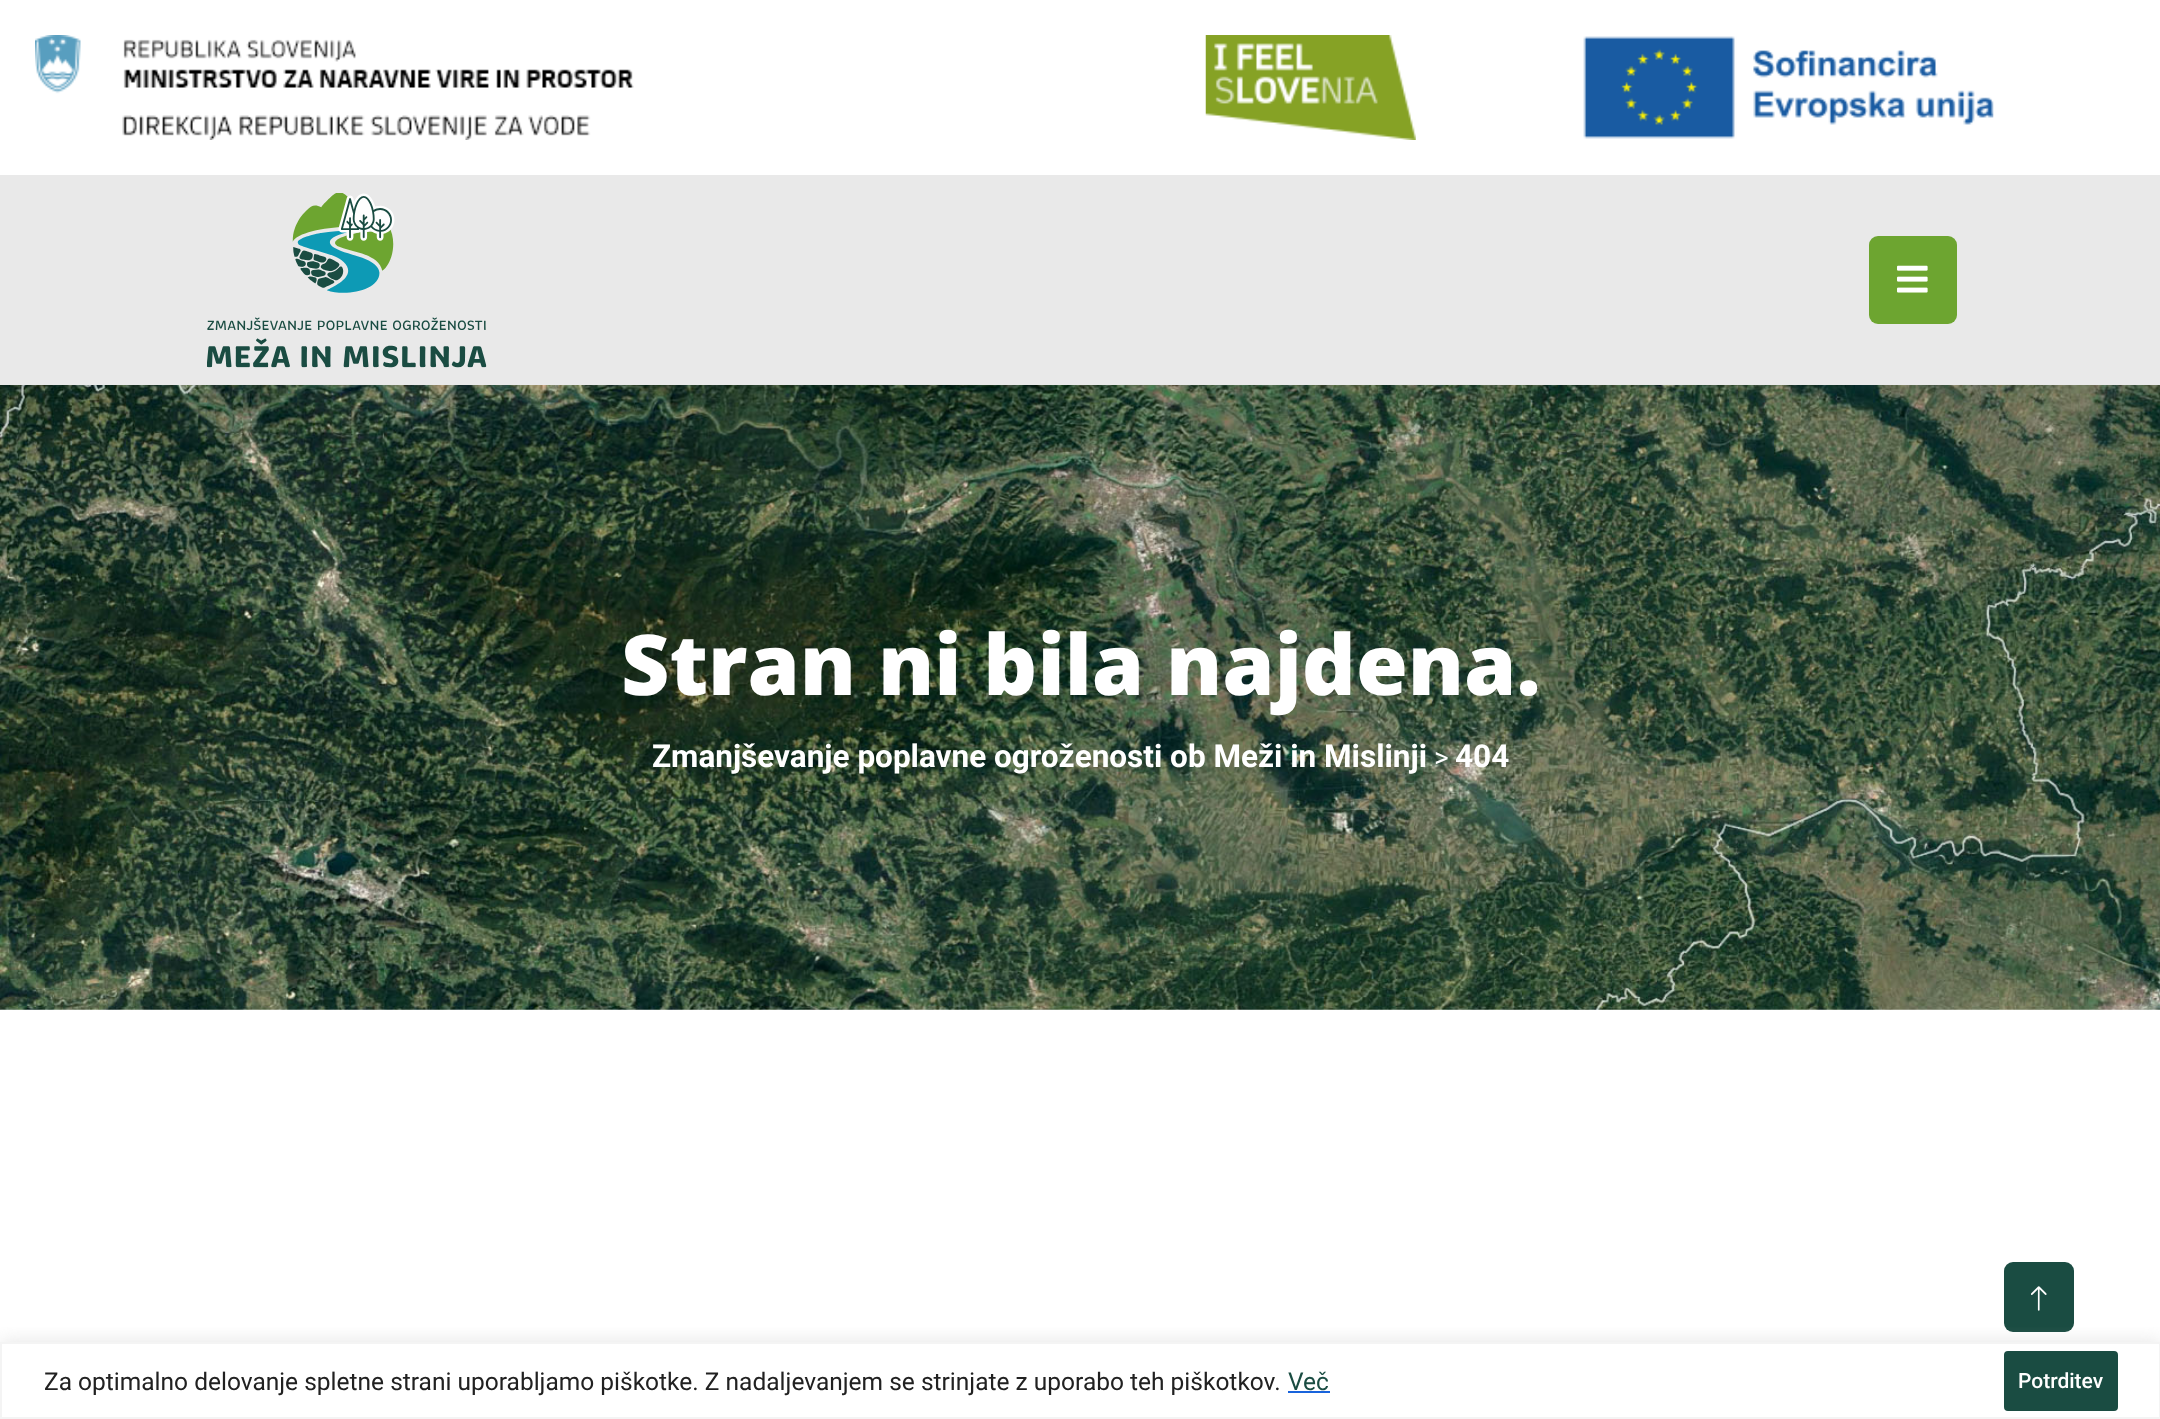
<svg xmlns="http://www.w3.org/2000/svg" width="2160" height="1419">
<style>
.a{font:800 84px Open Sans;fill:#fff}
.b{font:bold 31.5px Roboto;fill:#fff}
.c{font:28px Roboto;fill:#fff}
.d{font:24.5px Roboto;fill:#212121}
.e{font:24.5px Roboto;fill:#1a4c42}
.f{font:500 21px Roboto;fill:#fff}
</style>
<defs>
<clipPath id="clip1"><path d="M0 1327h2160v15H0z"/></clipPath>
</defs>
<rect width="100%" height="100%" fill="#fff"/>
<image href="1.png" x="35" y="35" width="599" height="105"/>
<image href="2.png" x="1205" y="35" width="211" height="105"/>
<image href="3.png" x="1583" y="36" width="411" height="103"/>
<path fill="#e9e9e9" d="M0 175h2160v210H0z"/>
<image href="4.png" x="207" y="193" width="280" height="175"/>
<rect fill="#6da530" x="1869" y="236" width="88" height="88" rx="9"/>
<image href="5.png" x="1897" y="265" width="31" height="28"/>
<image href="6.png" x="0" y="385" width="2160" height="625"/>
<rect fill="#1a4c42" x="2004" y="1262" width="70" height="70" rx="9"/>
<image href="7.png" x="2031" y="1286" width="16" height="25"/>
<g clip-path="url(#clip1)">
<path fill="#acabab4d" filter="blur(9px)" d="M0 1341h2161v77H0z"/>
</g>
<path fill="none" stroke="#f4f4f4" stroke-width="2" d="M1 1343h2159v75H1z"/>
<path fill="#1863dc" d="M1288 1391h42v2H1288z"/>
<rect fill="#1a4c42" stroke="#1a4c42" stroke-width="4" x="2006" y="1353" width="110" height="56" rx="2"/>
<text class="a" x="621" y="695">Stran ni bila najdena.</text>
<text class="b" x="652" y="767">Zmanjševanje poplavne ogroženosti ob Meži in Mislinji</text>
<text class="c" x="1434" y="767">&gt;</text>
<text class="b" x="1455" y="767">404</text>
<text class="d" x="44" y="1390">Za optimalno delovanje spletne strani uporabljamo piškotke. Z nadaljevanjem se strinjate z uporabo teh piškotkov.</text>
<text class="e" x="1288" y="1390">Več</text>
<text class="f" x="2018" y="1388">Potrditev</text>
</svg>
